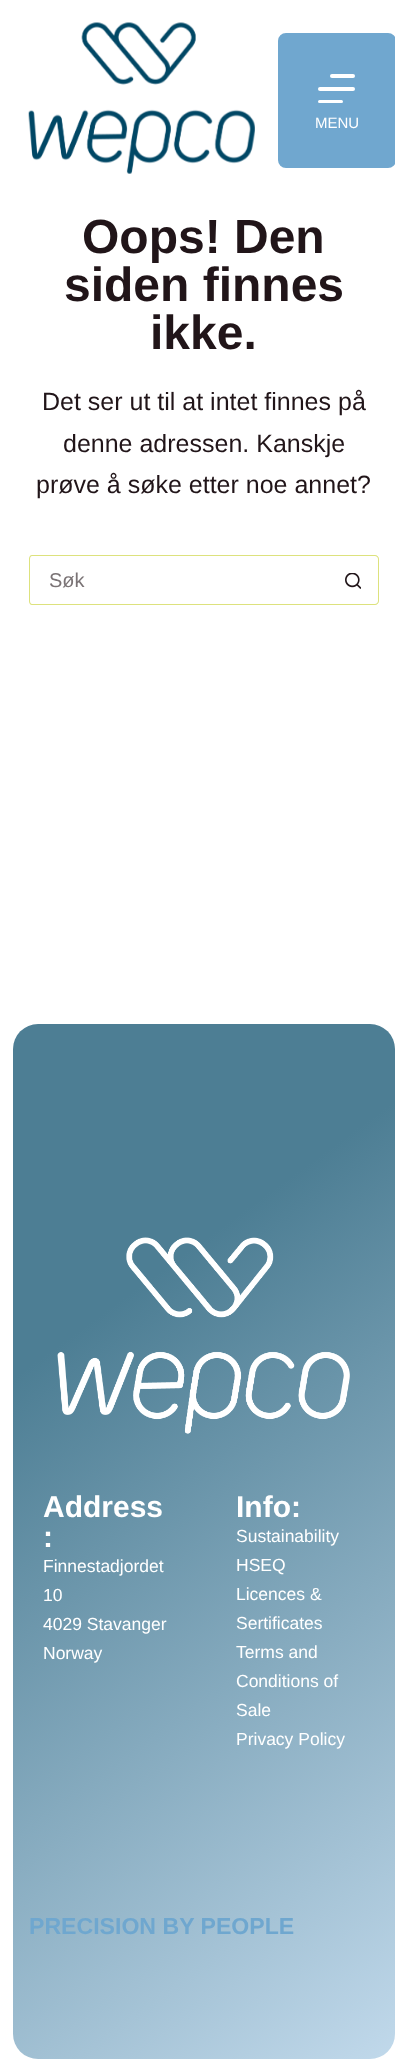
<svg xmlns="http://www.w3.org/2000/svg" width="407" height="2071">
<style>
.a{font:15px Liberation Sans;fill:#fff}
.b{font:bold 48px Liberation Sans;fill:#211519}
.c{font:25px Liberation Sans;fill:#211519}
.d{font:20px Liberation Sans;fill:#7a7375}
.e{font:bold 30px Liberation Sans;fill:#fff}
.f{font:17.5px Liberation Sans;fill:#fff}
.g{font:bold 23.1px Liberation Sans;fill:#6fa7cf}
</style>
<defs>
<clipPath id="clip1"><path d="M13 13h382v2046H13z"/></clipPath>
<linearGradient id="g1" gradientUnits="userSpaceOnUse" x1="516" y1="1971" x2="-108" y2="1112"><stop offset="0" stop-color="#c1d9eb"/><stop offset="0.73" stop-color="#4d7e94"/></linearGradient>
</defs>
<rect width="100%" height="100%" fill="#fff"/>
<image href="1.png" x="28" y="22" width="227" height="152"/>
<g clip-path="url(#clip1)">
<rect fill="#70a7cf" x="278" y="33" width="118" height="135" rx="8"/>
</g>
<rect fill="#fff" x="330" y="74" width="25" height="4" rx="2"/>
<rect fill="#fff" x="318" y="87" width="37" height="4" rx="2"/>
<rect fill="#fff" x="318" y="100" width="25" height="3" rx="1.5"/>
<path fill="#dde27d" fill-rule="evenodd" d="M32 555h297v50h-297c-2 0-3-2-3-4v-42c0-2 1-4 3-4zm0 1h297v48h-297c-1 0-2-1-2-3v-42c0-2 1-3 2-3z"/>
<path fill="#dde27d" fill-rule="evenodd" d="M329 555h46c2 0 4 2 4 4v42c0 2-2 4-4 4h-46zm0 1h46c1 0 3 1 3 3v42c0 2-2 3-3 3h-46z"/>
<image href="2.png" x="345" y="573" width="16" height="16"/>
<rect fill="url(#g1)" x="13" y="1024" width="382" height="1035" rx="25"/>
<image href="3.png" x="57" y="1237" width="293" height="197"/>
<text class="a" x="315" y="128">MENU</text>
<text class="b" x="82" y="253">Oops! Den</text>
<text class="b" x="64" y="301">siden finnes</text>
<text class="b" x="150" y="349">ikke.</text>
<text class="c" x="42" y="410">Det ser ut til at intet finnes på</text>
<text class="c" x="63" y="452">denne adressen. Kanskje</text>
<text class="c" x="36" y="493">prøve å søke etter noe annet?</text>
<text class="d" x="49" y="587">Søk</text>
<text class="e" x="43" y="1517">Address</text>
<text class="e" x="43" y="1547">:</text>
<text class="f" x="43" y="1572">Finnestadjordet</text>
<text class="f" x="43" y="1601">10</text>
<text class="f" x="43" y="1630">4029 Stavanger</text>
<text class="f" x="43" y="1659">Norway</text>
<text class="e" x="236" y="1517">Info:</text>
<text class="f" x="236" y="1542">Sustainability</text>
<text class="f" x="236" y="1571">HSEQ</text>
<text class="f" x="236" y="1600">Licences &amp;</text>
<text class="f" x="236" y="1629">Sertificates</text>
<text class="f" x="236" y="1658">Terms and</text>
<text class="f" x="236" y="1687">Conditions of</text>
<text class="f" x="236" y="1716">Sale</text>
<text class="f" x="236" y="1745">Privacy Policy</text>
<text class="g" x="29" y="1934">PRECISION BY PEOPLE</text>
</svg>
